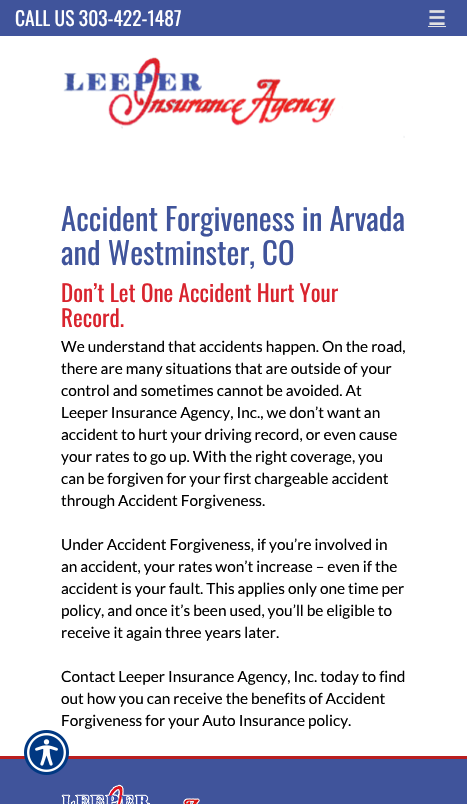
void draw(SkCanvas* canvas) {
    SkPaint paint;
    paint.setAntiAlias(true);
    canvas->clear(0xFFFFFFFF);
    paint.setColor(0xFF40549B);
    canvas->drawRect(SkRect::MakeXYWH(0, 0, 467, 36), paint);
    SkFont font1(fontMgr->matchFamilyStyle("Oswald", SkFontStyle::Normal()), 19.5f);
    font1.setSubpixel(true);
    paint.setColor(0xFFFFFFFF);
    canvas->drawString("CALL US 303-422-1487", 15, 26, font1, paint);
    SkFont font2(fontMgr->matchFamilyStyle("DejaVu Sans", SkFontStyle::Bold()), 19.5f);
    font2.setSubpixel(true);
    paint.setColor(0xFFE2E2E2);
    canvas->drawString("☰", 428, 25, font2, paint);
    canvas->drawRect(SkRect::MakeXYWH(428, 26, 18, 1), paint);
    canvas->drawImageRect(SkImages::DeferredFromEncodedData(SkData::MakeFromFileName("img1.png")), SkRect::MakeXYWH(63, 57, 342, 81), SkSamplingOptions());
    SkFont font3(fontMgr->matchFamilyStyle("Oswald", SkFontStyle::Normal()), 30.75f);
    font3.setSubpixel(true);
    paint.setColor(0xFF40549B);
    canvas->drawString("Accident Forgiveness in Arvada", 61, 231, font3, paint);
    canvas->drawString("and Westminster, CO", 61, 265, font3, paint);
    SkFont font4(fontMgr->matchFamilyStyle("Oswald", SkFontStyle::Normal()), 23.1f);
    font4.setSubpixel(true);
    paint.setColor(0xFFD9242E);
    canvas->drawString("Don’t Let One Accident Hurt Your", 61, 302, font4, paint);
    canvas->drawString("Record.", 61, 327, font4, paint);
    SkFont font5(fontMgr->matchFamilyStyle("Lato", SkFontStyle::Normal()), 15.4f);
    font5.setSubpixel(true);
    paint.setColor(0xFF000000);
    canvas->drawString("We understand that accidents happen. On the road,", 61, 352, font5, paint);
    canvas->drawString("there are many situations that are outside of your", 61, 374, font5, paint);
    canvas->drawString("control and sometimes cannot be avoided. At", 61, 396, font5, paint);
    canvas->drawString("Leeper Insurance Agency, Inc., we don’t want an", 61, 418, font5, paint);
    canvas->drawString("accident to hurt your driving record, or even cause", 61, 440, font5, paint);
    canvas->drawString("your rates to go up. With the right coverage, you", 61, 462, font5, paint);
    canvas->drawString("can be forgiven for your first chargeable accident", 61, 484, font5, paint);
    canvas->drawString("through Accident Forgiveness.", 61, 506, font5, paint);
    canvas->drawString("Under Accident Forgiveness, if you’re involved in", 61, 550, font5, paint);
    canvas->drawString("an accident, your rates won’t increase – even if the", 61, 572, font5, paint);
    canvas->drawString("accident is your fault. This applies only one time per", 61, 594, font5, paint);
    canvas->drawString("policy, and once it’s been used, you’ll be eligible to", 61, 616, font5, paint);
    canvas->drawString("receive it again three years later.", 61, 638, font5, paint);
    canvas->drawString("Contact Leeper Insurance Agency, Inc. today to find", 61, 682, font5, paint);
    canvas->drawString("out how you can receive the benefits of Accident", 61, 704, font5, paint);
    canvas->drawString("Forgiveness for your Auto Insurance policy.", 61, 726, font5, paint);
    paint.setColor(0xFF40549B);
    canvas->drawRect(SkRect::MakeXYWH(0, 759, 467, 45), paint);
    paint.setColor(0xFFBA1E1F);
    canvas->drawRect(SkRect::MakeXYWH(0, 756, 467, 3), paint);
    canvas->drawImageRect(SkImages::DeferredFromEncodedData(SkData::MakeFromFileName("img2.png")), SkRect::MakeXYWH(61, 784, 139, 20), SkSamplingOptions());
    canvas->drawImageRect(SkImages::DeferredFromEncodedData(SkData::MakeFromFileName("img3.png")), SkRect::MakeXYWH(24, 730, 45, 45), SkSamplingOptions());
}
